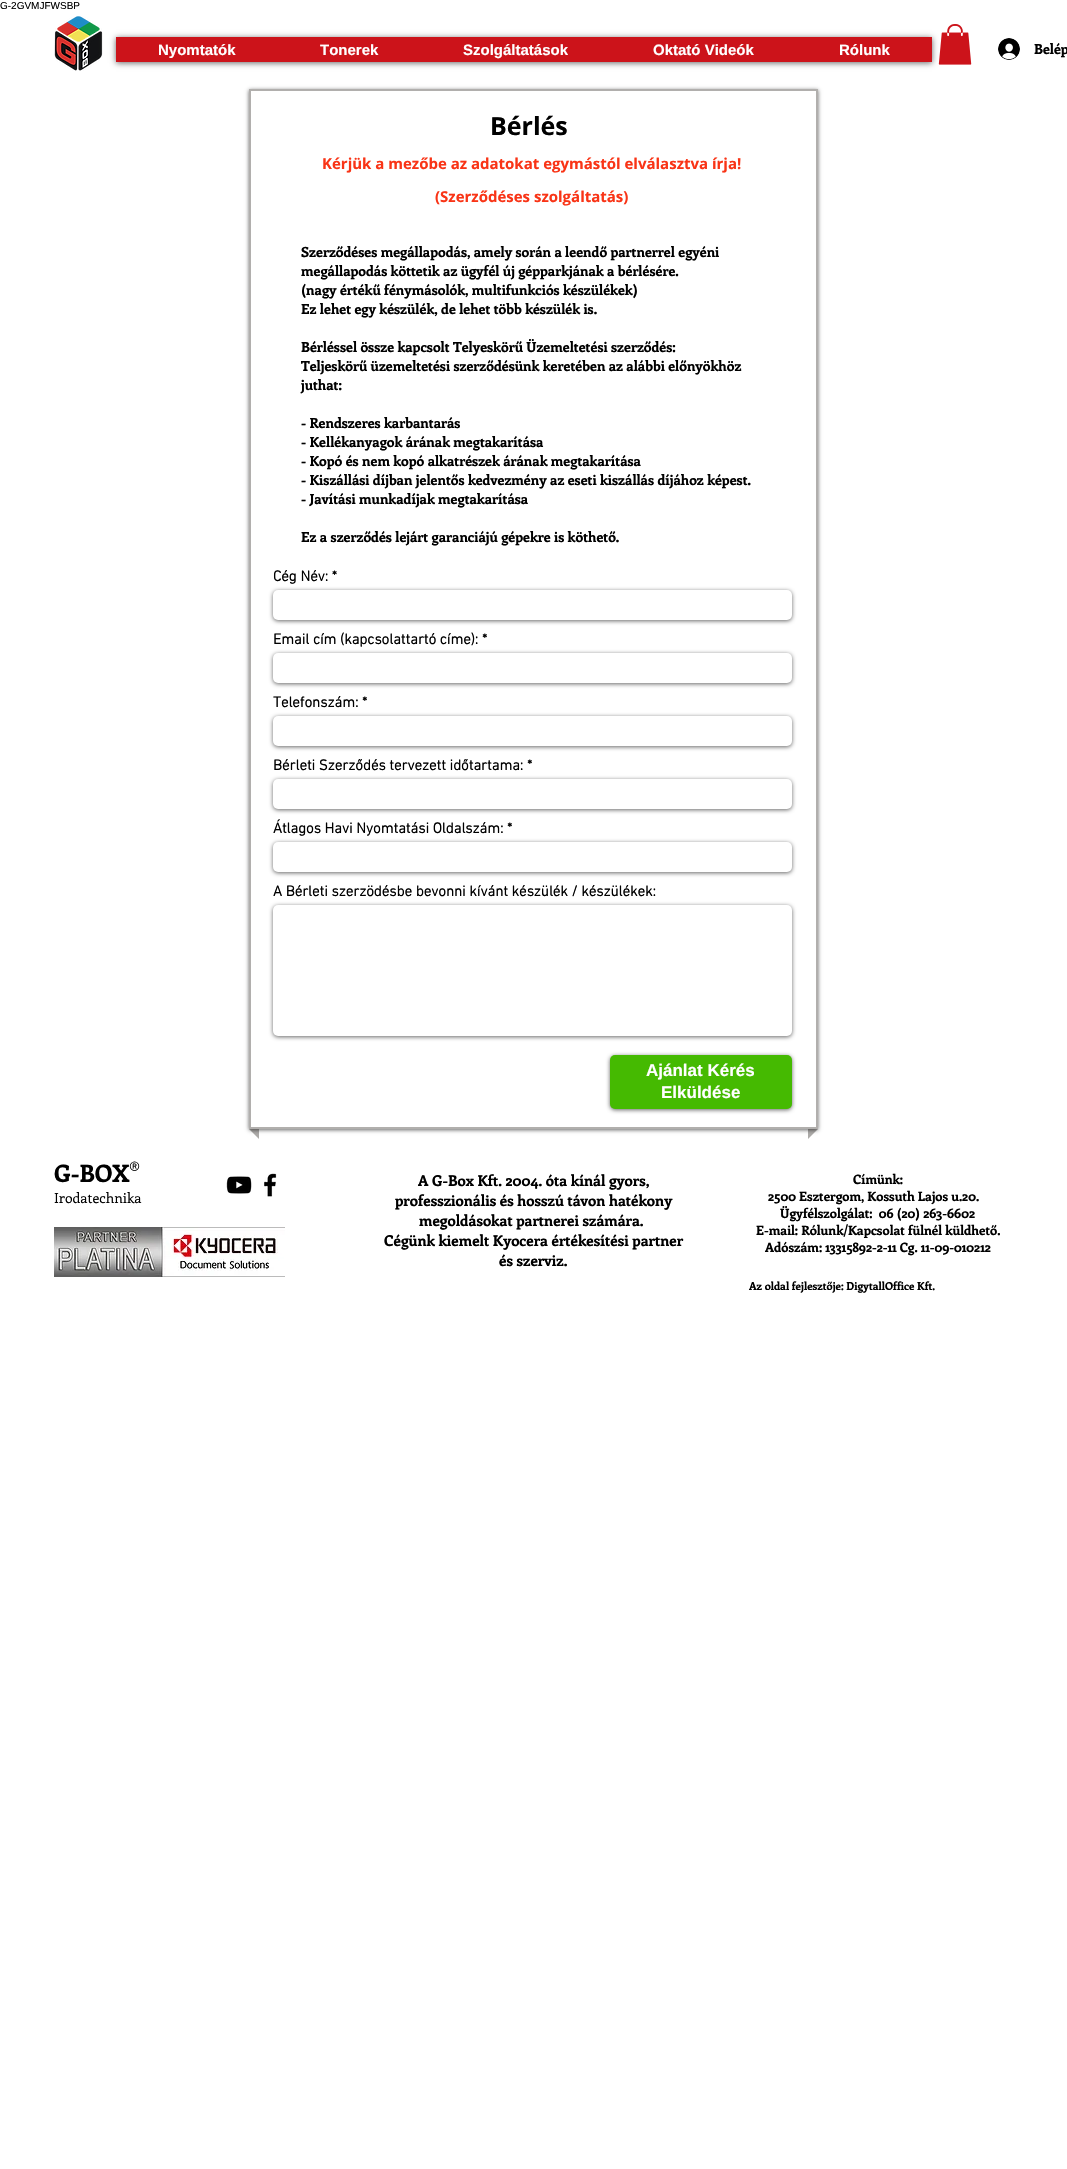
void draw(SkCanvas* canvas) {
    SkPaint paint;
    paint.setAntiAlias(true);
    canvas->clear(0xFFFFFFFF);
    SkFont font1(fontMgr->matchFamilyStyle("Liberation Sans", SkFontStyle::Normal()), 10);
    font1.setSubpixel(true);
    paint.setColor(0xFF000000);
    canvas->drawString("G-2GVMJFWSBP", 0, 9, font1, paint);
    canvas->drawImageRect(SkImages::DeferredFromEncodedData(SkData::MakeFromFileName("img1.png")), SkRect::MakeXYWH(54, 16, 49, 55), SkSamplingOptions());
    paint.setColor(0x99000000);
    paint.setMaskFilter(SkMaskFilter::MakeBlur(kNormal_SkBlurStyle, 3));
    canvas->drawRect(SkRect::MakeXYWH(116, 38, 816, 25), paint);
    paint.setMaskFilter(nullptr);
    paint.setColor(0xFFCC131A);
    canvas->drawRect(SkRect::MakeXYWH(116, 37, 816, 25), paint);
    SkFont font2(fontMgr->matchFamilyStyle("Liberation Sans", SkFontStyle::Bold()), 15);
    font2.setSubpixel(true);
    paint.setColor(0xFFFFFFFF);
    canvas->drawString("Nyomtatók", 158, 55, font2, paint);
    canvas->drawString("Tonerek", 320, 55, font2, paint);
    canvas->drawString("Szolgáltatások", 463, 55, font2, paint);
    canvas->drawString("Oktató Videók", 653, 55, font2, paint);
    canvas->drawString("Rólunk", 839, 55, font2, paint);
    canvas->drawImageRect(SkImages::DeferredFromEncodedData(SkData::MakeFromFileName("img2.png")), SkRect::MakeXYWH(938, 24, 34, 41), SkSamplingOptions());
    canvas->drawImageRect(SkImages::DeferredFromEncodedData(SkData::MakeFromFileName("img3.png")), SkRect::MakeXYWH(998, 38, 22, 22), SkSamplingOptions());
    SkFont font3(fontMgr->matchFamilyStyle("Enriqueta", SkFontStyle::Bold()), 14);
    font3.setSubpixel(true);
    paint.setColor(0xFF000000);
    canvas->drawString("Belép", 1034, 54, font3, paint);
    paint.setColor(0xFFACAAA8);
    canvas->drawPath(SkPathBuilder().moveTo(249, 1129).lineTo(259, 1129).lineTo(259, 1139).close().detach(), paint);
    canvas->drawPath(SkPathBuilder().moveTo(808, 1129).lineTo(818, 1129).lineTo(808, 1139).close().detach(), paint);
    canvas->save();
    canvas->clipPath(SkPathBuilder(SkPathFillType::kEvenOdd).moveTo(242, 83).lineTo(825, 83).lineTo(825, 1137).lineTo(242, 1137).close().moveTo(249, 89).lineTo(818, 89).lineTo(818, 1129).lineTo(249, 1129).close().detach(), true);
    paint.setColor(0x99000000);
    paint.setMaskFilter(SkMaskFilter::MakeBlur(kNormal_SkBlurStyle, 2));
    canvas->drawRect(SkRect::MakeXYWH(249, 90, 569, 1040), paint);
    paint.setMaskFilter(nullptr);
    canvas->restore();
    paint.setStyle(SkPaint::kStroke_Style);
    paint.setStrokeWidth(2);
    paint.setColor(0xFFB1AFAD);
    canvas->drawRect(SkRect::MakeXYWH(250, 90, 567, 1038), paint);
    SkFont font4(fontMgr->matchFamilyStyle("Open Sans", SkFontStyle::Bold()), 25);
    font4.setSubpixel(true);
    paint.setStyle(SkPaint::kFill_Style);
    paint.setColor(0xFF000000);
    canvas->drawString("Bérlés", 490, 135, font4, paint);
    SkFont font5(fontMgr->matchFamilyStyle("Open Sans", SkFontStyle::Bold()), 15);
    font5.setSubpixel(true);
    paint.setColor(0xFFF93416);
    canvas->drawString("Kérjük a mezőbe az adatokat egymástól elválasztva írja!", 322, 169, font5, paint);
    canvas->drawString("(Szerződéses szolgáltatás)", 435, 202, font5, paint);
    paint.setColor(0xFF000000);
    canvas->drawString("Szerződéses megállapodás, amely során a leendő partnerrel egyéni", 301, 257, font3, paint);
    canvas->drawString("megállapodás köttetik az ügyfél új gépparkjának a bérlésére.", 301, 276, font3, paint);
    canvas->drawString("(nagy értékű fénymásolók, multifunkciós készülékek)", 301, 295, font3, paint);
    canvas->drawString("Ez lehet egy készülék, de lehet több készülék is.", 301, 314, font3, paint);
    canvas->drawString("Bérléssel össze kapcsolt Telyeskörű Üzemeltetési szerződés:", 301, 352, font3, paint);
    canvas->drawString("Teljeskörű üzemeltetési szerződésünk keretében az alábbi előnyökhöz", 301, 371, font3, paint);
    canvas->drawString("juthat:", 301, 390, font3, paint);
    canvas->drawString("- Rendszeres karbantarás", 301, 428, font3, paint);
    canvas->drawString("- Kellékanyagok árának megtakarítása", 301, 447, font3, paint);
    canvas->drawString("- Kopó és nem kopó alkatrészek árának megtakarítása", 301, 466, font3, paint);
    canvas->drawString("- Kiszállási díjban jelentős kedvezmény az eseti kiszállás díjához képest.", 301, 485, font3, paint);
    canvas->drawString("- Javítási munkadíjak megtakarítása", 301, 504, font3, paint);
    canvas->drawString("Ez a szerződés lejárt garanciájú gépekre is köthető.", 301, 542, font3, paint);
    SkFont font6(fontMgr->matchFamilyStyle("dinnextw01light", SkFontStyle::Bold()), 15);
    font6.setSubpixel(true);
    canvas->drawString("Cég Név: *", 273, 581, font6, paint);
    paint.setColor(0x99000000);
    paint.setMaskFilter(SkMaskFilter::MakeBlur(kNormal_SkBlurStyle, 2));
    canvas->drawRoundRect(SkRect::MakeXYWH(273, 591, 519, 30), 5, 5, paint);
    paint.setMaskFilter(nullptr);
    paint.setColor(0xFFFFFFFF);
    canvas->drawRoundRect(SkRect::MakeXYWH(273, 590, 519, 30), 5, 5, paint);
    paint.setColor(0xFF000000);
    canvas->drawString("Email cím (kapcsolattartó címe): *", 273, 644, font6, paint);
    paint.setColor(0x99000000);
    paint.setMaskFilter(SkMaskFilter::MakeBlur(kNormal_SkBlurStyle, 2));
    canvas->drawRoundRect(SkRect::MakeXYWH(273, 654, 519, 30), 5, 5, paint);
    paint.setMaskFilter(nullptr);
    paint.setColor(0xFFFFFFFF);
    canvas->drawRoundRect(SkRect::MakeXYWH(273, 653, 519, 30), 5, 5, paint);
    paint.setColor(0xFF000000);
    canvas->drawString("Telefonszám: *", 273, 707, font6, paint);
    paint.setColor(0x99000000);
    paint.setMaskFilter(SkMaskFilter::MakeBlur(kNormal_SkBlurStyle, 2));
    canvas->drawRoundRect(SkRect::MakeXYWH(273, 717, 519, 30), 5, 5, paint);
    paint.setMaskFilter(nullptr);
    paint.setColor(0xFFFFFFFF);
    canvas->drawRoundRect(SkRect::MakeXYWH(273, 716, 519, 30), 5, 5, paint);
    paint.setColor(0xFF000000);
    canvas->drawString("Bérleti Szerződés tervezett időtartama: *", 273, 770, font6, paint);
    paint.setColor(0x99000000);
    paint.setMaskFilter(SkMaskFilter::MakeBlur(kNormal_SkBlurStyle, 2));
    canvas->drawRoundRect(SkRect::MakeXYWH(273, 780, 519, 30), 5, 5, paint);
    paint.setMaskFilter(nullptr);
    paint.setColor(0xFFFFFFFF);
    canvas->drawRoundRect(SkRect::MakeXYWH(273, 779, 519, 30), 5, 5, paint);
    paint.setColor(0xFF000000);
    canvas->drawString("Átlagos Havi Nyomtatási Oldalszám: *", 273, 833, font6, paint);
    paint.setColor(0x99000000);
    paint.setMaskFilter(SkMaskFilter::MakeBlur(kNormal_SkBlurStyle, 2));
    canvas->drawRoundRect(SkRect::MakeXYWH(273, 843, 519, 30), 5, 5, paint);
    paint.setMaskFilter(nullptr);
    paint.setColor(0xFFFFFFFF);
    canvas->drawRoundRect(SkRect::MakeXYWH(273, 842, 519, 30), 5, 5, paint);
    paint.setColor(0xFF000000);
    canvas->drawString("A Bérleti szerzödésbe bevonni kívánt készülék / készülékek:", 273, 896, font6, paint);
    paint.setColor(0x99000000);
    paint.setMaskFilter(SkMaskFilter::MakeBlur(kNormal_SkBlurStyle, 2));
    canvas->drawRoundRect(SkRect::MakeXYWH(273, 906, 519, 131), 5, 5, paint);
    paint.setMaskFilter(nullptr);
    paint.setColor(0xFFFFFFFF);
    canvas->drawRoundRect(SkRect::MakeXYWH(273, 905, 519, 131), 5, 5, paint);
    paint.setColor(0x99000000);
    paint.setMaskFilter(SkMaskFilter::MakeBlur(kNormal_SkBlurStyle, 2));
    canvas->drawRoundRect(SkRect::MakeXYWH(610, 1056, 182, 54), 5, 5, paint);
    paint.setMaskFilter(nullptr);
    paint.setColor(0xFF45BA01);
    canvas->drawRoundRect(SkRect::MakeXYWH(610, 1055, 182, 54), 5, 5, paint);
    SkFont font7(fontMgr->matchFamilyStyle("Liberation Sans", SkFontStyle::Bold()), 17);
    font7.setSubpixel(true);
    paint.setColor(0xFFFFFFFF);
    canvas->drawString("Ajánlat Kérés", 646, 1076, font7, paint);
    canvas->drawString("Elküldése", 661, 1098, font7, paint);
    SkFont font8(fontMgr->matchFamilyStyle("Enriqueta", SkFontStyle::Bold()), 24);
    font8.setSubpixel(true);
    paint.setColor(0xFF000000);
    canvas->drawString("G-BOX", 54, 1182, font8, paint);
    SkFont font9(fontMgr->matchFamilyStyle("dinnextw01light", SkFontStyle(300, SkFontStyle::kNormal_Width, SkFontStyle::kUpright_Slant)), 24);
    font9.setSubpixel(true);
    canvas->drawString("®", 129, 1178, font9, paint);
    canvas->drawImageRect(SkImages::DeferredFromEncodedData(SkData::MakeFromFileName("img4.png")), SkRect::MakeXYWH(226, 1176, 26, 18), SkSamplingOptions());
    canvas->drawImageRect(SkImages::DeferredFromEncodedData(SkData::MakeFromFileName("img5.png")), SkRect::MakeXYWH(264, 1173, 13, 24), SkSamplingOptions());
    SkFont font10(fontMgr->matchFamilyStyle("Enriqueta", SkFontStyle::Bold()), 15);
    font10.setSubpixel(true);
    canvas->drawString("A G-Box Kft. 2004. óta kínál gyors,", 418, 1186, font10, paint);
    canvas->drawString("professzionális és hosszú távon hatékony", 395, 1206, font10, paint);
    canvas->drawString("megoldásokat partnerei számára.", 419, 1226, font10, paint);
    canvas->drawString("Cégünk kiemelt Kyocera értékesítési partner", 384, 1246, font10, paint);
    canvas->drawString("és szerviz.", 499, 1266, font10, paint);
    SkFont font11(fontMgr->matchFamilyStyle("Enriqueta", SkFontStyle::Bold()), 13);
    font11.setSubpixel(true);
    canvas->drawString("Címünk:", 853, 1184, font11, paint);
    canvas->drawString("2500 Esztergom, Kossuth Lajos u.20.", 768, 1201, font11, paint);
    canvas->drawString("Ügyfélszolgálat:  06 (20) 263-6602", 780, 1218, font11, paint);
    canvas->drawString("E-mail: Rólunk/Kapcsolat fülnél küldhető.", 756, 1235, font11, paint);
    canvas->drawString("Adószám: 13315892-2-11 Cg. 11-09-010212", 765, 1252, font11, paint);
    SkFont font12(fontMgr->matchFamilyStyle("Enriqueta", SkFontStyle::Normal()), 14);
    font12.setSubpixel(true);
    canvas->drawString("Irodatechnika", 54, 1203, font12, paint);
    canvas->drawImageRect(SkImages::DeferredFromEncodedData(SkData::MakeFromFileName("img6.png")), SkRect::MakeXYWH(54, 1227, 231, 50), SkSamplingOptions());
    SkFont font13(fontMgr->matchFamilyStyle("Enriqueta", SkFontStyle::Bold()), 11);
    font13.setSubpixel(true);
    canvas->drawString("Az oldal fejlesztője: DigytallOffice Kft.", 749, 1290, font13, paint);
}
